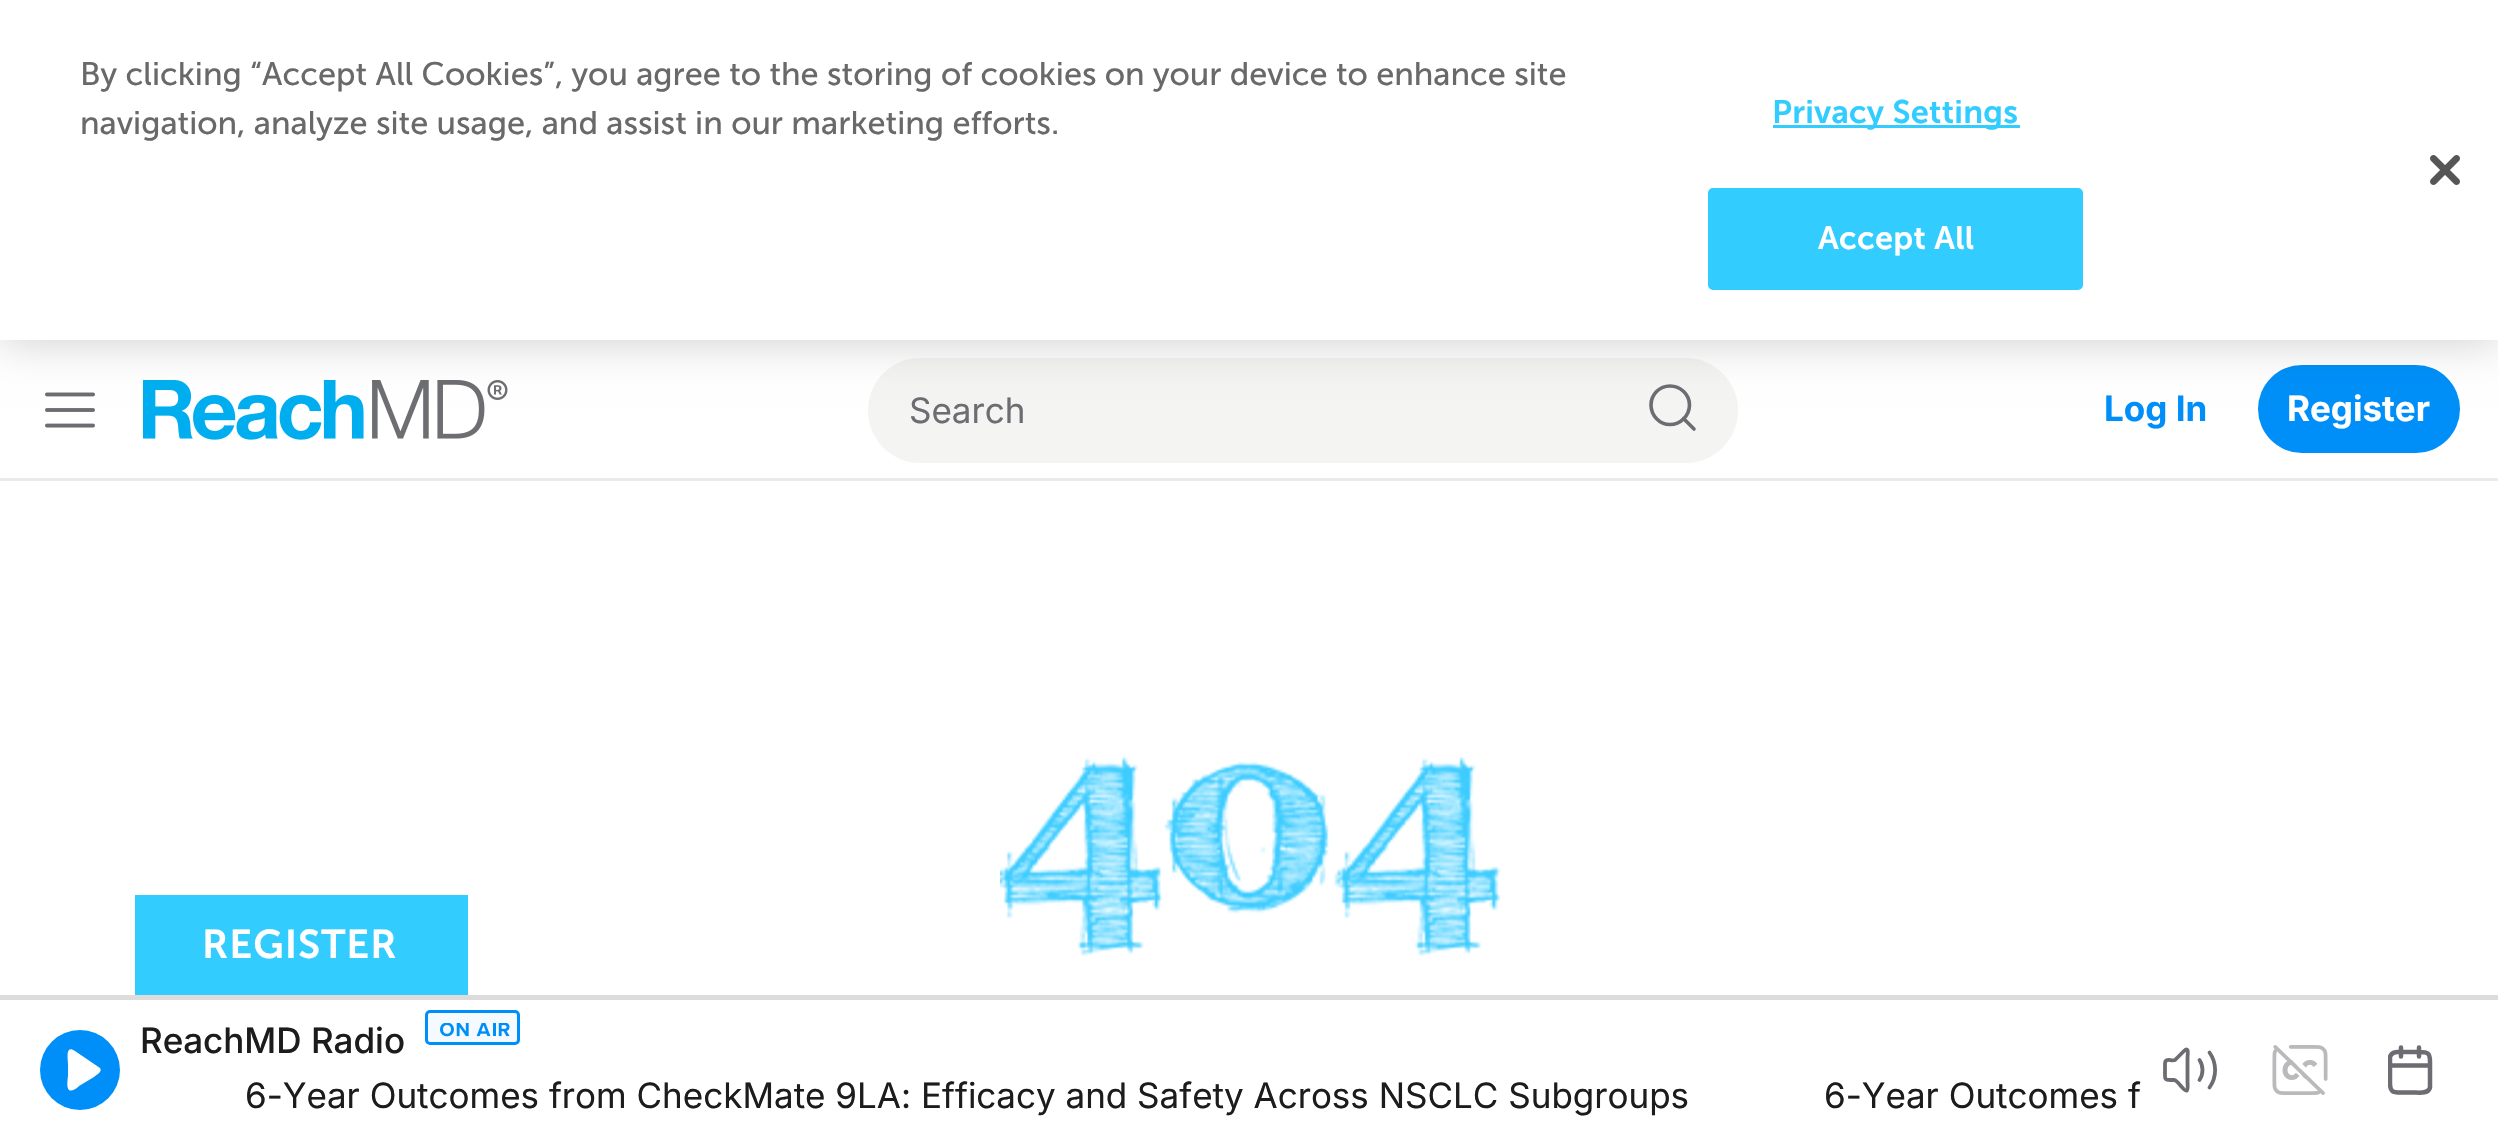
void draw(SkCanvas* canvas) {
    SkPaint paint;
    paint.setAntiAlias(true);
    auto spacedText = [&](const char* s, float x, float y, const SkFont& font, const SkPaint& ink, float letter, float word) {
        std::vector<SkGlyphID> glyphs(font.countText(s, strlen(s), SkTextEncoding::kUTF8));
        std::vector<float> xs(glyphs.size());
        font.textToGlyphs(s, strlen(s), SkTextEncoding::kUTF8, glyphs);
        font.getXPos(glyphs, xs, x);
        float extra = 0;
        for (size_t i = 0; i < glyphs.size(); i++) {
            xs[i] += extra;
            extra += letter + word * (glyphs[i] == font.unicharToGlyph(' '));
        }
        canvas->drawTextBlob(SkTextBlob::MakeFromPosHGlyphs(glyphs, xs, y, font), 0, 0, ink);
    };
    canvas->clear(0xFFFFFFFF);
    canvas->drawImageRect(SkImages::DeferredFromEncodedData(SkData::MakeFromFileName("img2.png")), SkRect::MakeXYWH(45, 392, 50, 36), SkSamplingOptions());
    canvas->drawImageRect(SkImages::DeferredFromEncodedData(SkData::MakeFromFileName("img3.png")), SkRect::MakeXYWH(143, 380, 365, 60), SkSamplingOptions());
    paint.setColor(0xFFF4F4F3);
    canvas->drawPath(SkPathBuilder().moveTo(920.5f, 358).lineTo(1618, 358).lineTo(1618, 463).lineTo(920.5f, 463).cubicTo(891.5f, 463, 868, 439.5f, 868, 410.5f).cubicTo(868, 381.5f, 891.5f, 358, 920.5f, 358).close().detach(), paint);
    canvas->drawPath(SkPathBuilder().moveTo(1618, 358).lineTo(1685.5f, 358).cubicTo(1714.5f, 358, 1738, 381.5f, 1738, 410.5f).cubicTo(1738, 439.5f, 1714.5f, 463, 1685.5f, 463).lineTo(1618, 463).close().detach(), paint);
    paint.setStyle(SkPaint::kStroke_Style);
    paint.setStrokeWidth(3.6f);
    paint.setStrokeCap(SkPaint::kRound_Cap);
    paint.setStrokeJoin(SkPaint::kRound_Join);
    paint.setColor(0xFF6C6C72);
    canvas->drawPath(SkPathBuilder().moveTo(1670, 424.5f).cubicTo(1680.5f, 424.5f, 1689.5f, 415.5f, 1689.5f, 405).cubicTo(1689.5f, 394.5f, 1680.5f, 386, 1670, 386).cubicTo(1659.5f, 386, 1651, 394.5f, 1651, 405).cubicTo(1651, 415.5f, 1659.5f, 424.5f, 1670, 424.5f).close().moveTo(1694, 429).lineTo(1683.5f, 418.5f).detach(), paint);
    paint.setStyle(SkPaint::kFill_Style);
    paint.setColor(0xFF008FF8);
    canvas->drawRoundRect(SkRect::MakeXYWH(2258, 365, 202, 88), 44, 44, paint);
    paint.setColor(0x33000000);
    paint.setMaskFilter(SkMaskFilter::MakeBlur(kNormal_SkBlurStyle, 22.5f));
    canvas->drawRect(SkRect::MakeXYWH(0, 0, 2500, 340), paint);
    paint.setMaskFilter(nullptr);
    paint.setColor(0xFFFFFFFF);
    canvas->drawRect(SkRect::MakeXYWH(0, 0, 2498, 340), paint);
    SkFont font1(fontMgr->matchFamilyStyle("Museo Sans", SkFontStyle::Normal()), 32.5f);
    font1.setSubpixel(true);
    paint.setColor(0xFF696969);
    canvas->drawString("By clicking “Accept All Cookies”, you agree to the storing of cookies on your device to enhance site", 80, 85, font1, paint);
    canvas->drawString("navigation, analyze site usage, and assist in our marketing efforts.", 80, 134, font1, paint);
    paint.setColor(0xFF33CCFF);
    canvas->drawRect(SkRect::MakeXYWH(1773, 125, 247, 3), paint);
    SkFont font2(fontMgr->matchFamilyStyle("Museo Sans", SkFontStyle(600, SkFontStyle::kNormal_Width, SkFontStyle::kUpright_Slant)), 32.5f);
    font2.setSubpixel(true);
    spacedText("Privacy Settings", 1772, 123, font2, paint, 0.3f, 0);
    canvas->drawRoundRect(SkRect::MakeXYWH(1709.5f, 189.5f, 372, 99), 3.5f, 3.5f, paint);
    paint.setStyle(SkPaint::kStroke_Style);
    paint.setStrokeWidth(3);
    paint.setStrokeCap(SkPaint::kButt_Cap);
    paint.setStrokeJoin(SkPaint::kMiter_Join);
    canvas->drawRoundRect(SkRect::MakeXYWH(1709.5f, 189.5f, 372, 99), 3.5f, 3.5f, paint);
    paint.setStyle(SkPaint::kFill_Style);
    paint.setColor(0xFFFFFFFF);
    spacedText("Accept All", 1818, 249, font2, paint, 0.3f, 0);
    canvas->drawImageRect(SkImages::DeferredFromEncodedData(SkData::MakeFromFileName("img1.png")), SkRect::MakeXYWH(2430, 155, 30, 30), SkSamplingOptions());
    paint.setColor(0xFFEAEAEA);
    canvas->drawRect(SkRect::MakeXYWH(0, 478, 2498, 3), paint);
    SkFont font3(fontMgr->matchFamilyStyle("Inter", SkFontStyle::Normal()), 35);
    font3.setSubpixel(true);
    paint.setColor(0xFF6C6C72);
    canvas->drawString("Search", 909, 423, font3, paint);
    SkFont font4(fontMgr->matchFamilyStyle("Inter", SkFontStyle::Bold()), 35);
    font4.setSubpixel(true);
    paint.setColor(0xFF008FF8);
    canvas->drawString("Log In", 2104, 421, font4, paint);
    paint.setColor(0xFFFFFFFF);
    canvas->drawString("Register", 2287, 421, font4, paint);
    paint.setColor(0xFF33CCFF);
    canvas->drawRect(SkRect::MakeXYWH(135, 895, 333, 100), paint);
    SkFont font5(fontMgr->matchFamilyStyle("Museo Sans", SkFontStyle(600, SkFontStyle::kNormal_Width, SkFontStyle::kUpright_Slant)), 40);
    font5.setSubpixel(true);
    paint.setColor(0xFFFFFFFF);
    spacedText("REGISTER", 202, 958, font5, paint, 1, 0);
    canvas->drawImageRect(SkImages::DeferredFromEncodedData(SkData::MakeFromFileName("img4.png")), SkRect::MakeXYWH(1000, 757, 500, 199), SkSamplingOptions());
    paint.setColor(0xFFDCDCDC);
    canvas->drawRect(SkRect::MakeXYWH(0, 995, 2498, 5), paint);
    paint.setColor(0xFF008FF8);
    canvas->drawCircle(80, 1070, 40, paint);
    paint.setColor(0xFFFFFFFF);
    canvas->drawPath(SkPathBuilder(SkPathFillType::kEvenOdd).moveTo(75, 1051).lineTo(100, 1068).cubicTo(103, 1072, 96, 1075, 94, 1077).lineTo(79, 1086).cubicTo(77, 1088, 72, 1092, 69, 1090).cubicTo(66, 1088, 68, 1077, 68, 1075).lineTo(68, 1064).cubicTo(68, 1059, 65, 1044, 75, 1051).close().detach(), paint);
    SkFont font6(fontMgr->matchFamilyStyle("Inter", SkFontStyle(500, SkFontStyle::kNormal_Width, SkFontStyle::kUpright_Slant)), 35);
    font6.setSubpixel(true);
    paint.setColor(0xFF1C1C1C);
    canvas->drawString("ReachMD Radio", 140, 1053, font6, paint);
    paint.setColor(0xFFF4FAFF);
    canvas->drawRoundRect(SkRect::MakeXYWH(426.5f, 1011.5f, 92, 32), 3.5f, 3.5f, paint);
    paint.setStyle(SkPaint::kStroke_Style);
    paint.setColor(0xFF008FF8);
    canvas->drawRoundRect(SkRect::MakeXYWH(426.5f, 1011.5f, 92, 32), 3.5f, 3.5f, paint);
    canvas->drawImageRect(SkImages::DeferredFromEncodedData(SkData::MakeFromFileName("img5.png")), SkRect::MakeXYWH(440, 1023, 70, 14), SkSamplingOptions());
    paint.setStyle(SkPaint::kFill_Style);
    paint.setColor(0xFF1C1C1C);
    canvas->drawString("6-Year Outcomes from CheckMate 9LA: Efficacy and Safety Across NSCLC Subgroups", 245, 1108, font3, paint);
    canvas->drawString("6-Year Outcomes f", 1824, 1108, font3, paint);
    paint.setStyle(SkPaint::kStroke_Style);
    paint.setStrokeWidth(3.8f);
    paint.setStrokeCap(SkPaint::kRound_Cap);
    paint.setStrokeJoin(SkPaint::kRound_Join);
    paint.setColor(0xFF6C6C72);
    canvas->drawPath(SkPathBuilder().moveTo(2209.5f, 1052.5f).cubicTo(2217, 1063, 2217, 1077, 2209.5f, 1087.5f).moveTo(2199.5f, 1060).cubicTo(2203.5f, 1066, 2203.5f, 1074, 2199.5f, 1080).moveTo(2184, 1051).lineTo(2175, 1060).cubicTo(2171, 1061.5f, 2165, 1057, 2165, 1064).lineTo(2165, 1072).cubicTo(2165, 1078.5f, 2164, 1080, 2170.5f, 1080).lineTo(2174.5f, 1080).cubicTo(2178, 1081, 2184.5f, 1092, 2187, 1090.5f).cubicTo(2188, 1089.5f, 2187.5f, 1082, 2187.5f, 1082).lineTo(2187.5f, 1058).cubicTo(2187.5f, 1055.5f, 2189.5f, 1045.5f, 2184, 1051).close().detach(), paint);
    canvas->drawImageRect(SkImages::DeferredFromEncodedData(SkData::MakeFromFileName("img6.png")), SkRect::MakeXYWH(2272, 1045, 56, 50), SkSamplingOptions());
    canvas->save();
    canvas->clipRect(SkRect::MakeXYWH(2388, 1045, 45, 50));
    paint.setStrokeWidth(4.5f);
    canvas->drawPath(SkPathBuilder().moveTo(2430, 1065.5f).lineTo(2390, 1065.5f).moveTo(2419, 1047.5f).lineTo(2419, 1056.5f).moveTo(2401, 1047.5f).lineTo(2401, 1056.5f).moveTo(2400.5f, 1092.5f).lineTo(2413, 1092.5f).cubicTo(2418, 1092.5f, 2428.5f, 1094.5f, 2430, 1087.5f).lineTo(2430, 1061.5f).cubicTo(2430, 1053, 2427.5f, 1052, 2419.5f, 1052).lineTo(2407, 1052).cubicTo(2402, 1052, 2391.5f, 1050, 2390, 1057).lineTo(2390, 1083).cubicTo(2390, 1091.5f, 2392.5f, 1092.5f, 2400.5f, 1092.5f).close().detach(), paint);
    canvas->restore();
}
